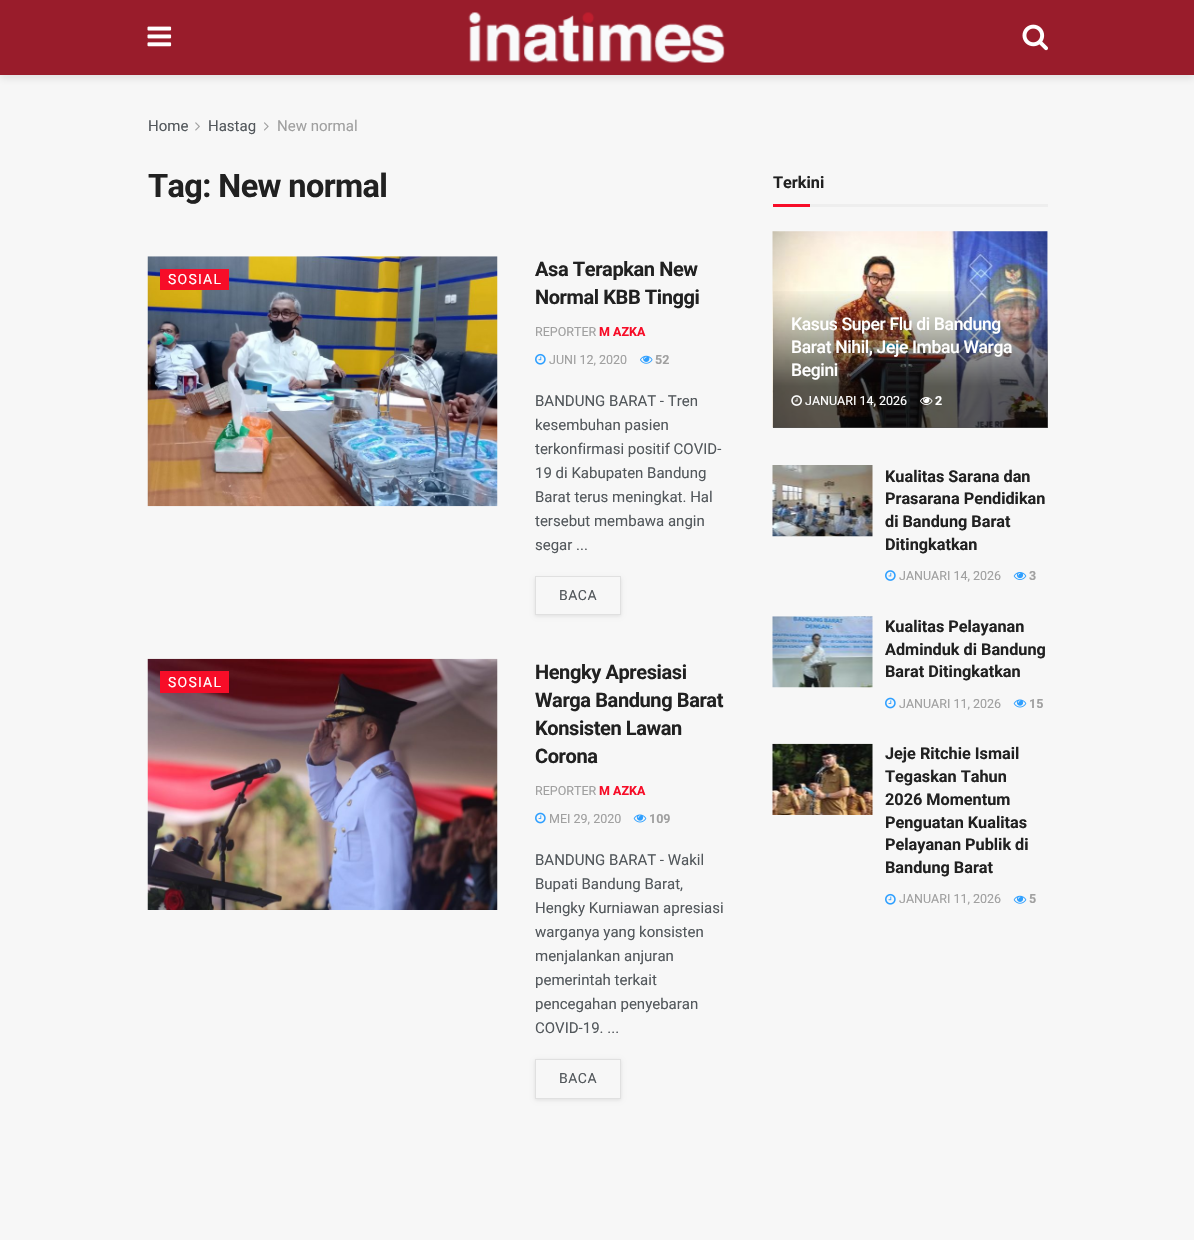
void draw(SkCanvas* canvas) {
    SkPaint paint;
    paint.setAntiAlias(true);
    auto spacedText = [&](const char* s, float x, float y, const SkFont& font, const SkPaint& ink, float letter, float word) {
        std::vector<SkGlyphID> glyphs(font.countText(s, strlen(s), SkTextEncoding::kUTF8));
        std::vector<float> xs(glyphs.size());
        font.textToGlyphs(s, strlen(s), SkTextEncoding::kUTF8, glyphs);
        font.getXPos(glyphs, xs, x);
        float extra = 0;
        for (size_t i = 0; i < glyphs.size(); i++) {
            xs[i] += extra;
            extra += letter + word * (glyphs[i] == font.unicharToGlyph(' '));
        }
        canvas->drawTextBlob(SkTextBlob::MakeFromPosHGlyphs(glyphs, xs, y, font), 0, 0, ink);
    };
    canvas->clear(0xFFF7F7F7);
    paint.setColor(0x1A000000);
    paint.setMaskFilter(SkMaskFilter::MakeBlur(kNormal_SkBlurStyle, 4));
    canvas->drawRect(SkRect::MakeXYWH(0, 3, 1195, 75), paint);
    paint.setMaskFilter(nullptr);
    paint.setColor(0xFF991C2B);
    canvas->drawRect(SkRect::MakeXYWH(0, 0, 1194, 75), paint);
    canvas->drawImageRect(SkImages::DeferredFromEncodedData(SkData::MakeFromFileName("img1.png")), SkRect::MakeXYWH(147, 26, 25, 21), SkSamplingOptions());
    canvas->drawImageRect(SkImages::DeferredFromEncodedData(SkData::MakeFromFileName("img2.png")), SkRect::MakeXYWH(468, 12, 257, 51), SkSamplingOptions());
    canvas->drawImageRect(SkImages::DeferredFromEncodedData(SkData::MakeFromFileName("img3.png")), SkRect::MakeXYWH(1022, 24, 26, 27), SkSamplingOptions());
    SkFont font1(fontMgr->matchFamilyStyle("Roboto", SkFontStyle::Normal()), 15);
    font1.setSubpixel(true);
    paint.setColor(0xFF53585C);
    canvas->drawString("Home", 148, 131, font1, paint);
    canvas->drawImageRect(SkImages::DeferredFromEncodedData(SkData::MakeFromFileName("img4.png")), SkRect::MakeXYWH(195, 122, 5, 9), SkSamplingOptions());
    canvas->drawString("Hastag", 208, 131, font1, paint);
    canvas->drawImageRect(SkImages::DeferredFromEncodedData(SkData::MakeFromFileName("img5.png")), SkRect::MakeXYWH(264, 122, 5, 9), SkSamplingOptions());
    paint.setColor(0xFFA0A0A0);
    canvas->drawString("New normal", 277, 131, font1, paint);
    SkFont font2(fontMgr->matchFamilyStyle("Roboto", SkFontStyle::Bold()), 32.5f);
    font2.setSubpixel(true);
    paint.setColor(0xFF212121);
    spacedText("Tag: New normal", 148, 197, font2, paint, -0.6f, 0);
    canvas->drawImageRect(SkImages::DeferredFromEncodedData(SkData::MakeFromFileName("img6.png")), SkRect::MakeXYWH(147, 256, 351, 251), SkSamplingOptions());
    paint.setColor(0xFFF70D28);
    canvas->drawRect(SkRect::MakeXYWH(160, 269, 69, 21), paint);
    SkFont font3(fontMgr->matchFamilyStyle("Roboto", SkFontStyle::Normal()), 14);
    font3.setSubpixel(true);
    paint.setColor(0xFFFFFFFF);
    spacedText("SOSIAL", 168, 284, font3, paint, 1.25f, 0);
    SkFont font4(fontMgr->matchFamilyStyle("Roboto", SkFontStyle::Bold()), 20);
    font4.setSubpixel(true);
    paint.setColor(0xFF212121);
    spacedText("Asa Terapkan New", 535, 276, font4, paint, -0.4f, 0);
    spacedText("Normal KBB Tinggi", 535, 304, font4, paint, -0.4f, 0);
    SkFont font5(fontMgr->matchFamilyStyle("Roboto", SkFontStyle::Normal()), 12.5f);
    font5.setSubpixel(true);
    paint.setColor(0xFFA0A0A0);
    canvas->drawString("REPORTER", 535, 336, font5, paint);
    SkFont font6(fontMgr->matchFamilyStyle("Roboto", SkFontStyle::Bold()), 12.5f);
    font6.setSubpixel(true);
    paint.setColor(0xFFF70D28);
    canvas->drawString("M AZKA", 599, 336, font6, paint);
    canvas->drawImageRect(SkImages::DeferredFromEncodedData(SkData::MakeFromFileName("img7.png")), SkRect::MakeXYWH(535, 353, 11, 12), SkSamplingOptions());
    paint.setColor(0xFFA0A0A0);
    canvas->drawString("JUNI 12, 2020", 549, 364, font5, paint);
    canvas->drawImageRect(SkImages::DeferredFromEncodedData(SkData::MakeFromFileName("img8.png")), SkRect::MakeXYWH(640, 355, 13, 9), SkSamplingOptions());
    canvas->drawString("52", 655, 364, font6, paint);
    paint.setColor(0xFF53585C);
    canvas->drawString("BANDUNG BARAT - Tren", 535, 406, font1, paint);
    canvas->drawString("kesembuhan pasien", 535, 430, font1, paint);
    canvas->drawString("terkonfirmasi positif COVID-", 535, 454, font1, paint);
    canvas->drawString("19 di Kabupaten Bandung", 535, 478, font1, paint);
    canvas->drawString("Barat terus meningkat. Hal", 535, 502, font1, paint);
    canvas->drawString("tersebut membawa angin", 535, 526, font1, paint);
    canvas->drawString("segar ...", 535, 550, font1, paint);
    canvas->save();
    canvas->clipPath(SkPathBuilder(SkPathFillType::kEvenOdd).moveTo(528, 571).lineTo(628, 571).lineTo(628, 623).lineTo(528, 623).close().moveTo(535, 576).lineTo(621, 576).lineTo(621, 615).lineTo(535, 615).close().detach(), true);
    paint.setColor(0x1A000000);
    paint.setMaskFilter(SkMaskFilter::MakeBlur(kNormal_SkBlurStyle, 2));
    canvas->drawRect(SkRect::MakeXYWH(535, 578, 86, 38), paint);
    paint.setMaskFilter(nullptr);
    canvas->restore();
    paint.setStyle(SkPaint::kStroke_Style);
    paint.setStrokeWidth(1);
    paint.setColor(0xFFE0E0E0);
    canvas->drawRect(SkRect::MakeXYWH(535.5f, 576.5f, 85, 38), paint);
    paint.setStyle(SkPaint::kFill_Style);
    paint.setColor(0xFF53585C);
    spacedText("BACA", 559, 600, font3, paint, 0.5f, 0);
    canvas->drawImageRect(SkImages::DeferredFromEncodedData(SkData::MakeFromFileName("img9.png")), SkRect::MakeXYWH(147, 658, 351, 252), SkSamplingOptions());
    paint.setColor(0xFFF70D28);
    canvas->drawRect(SkRect::MakeXYWH(160, 671, 69, 22), paint);
    paint.setColor(0xFFFFFFFF);
    spacedText("SOSIAL", 168, 687, font3, paint, 1.25f, 0);
    paint.setColor(0xFF212121);
    spacedText("Hengky Apresiasi", 535, 679, font4, paint, -0.4f, 0);
    spacedText("Warga Bandung Barat", 535, 707, font4, paint, -0.4f, 0);
    spacedText("Konsisten Lawan", 535, 735, font4, paint, -0.4f, 0);
    spacedText("Corona", 535, 763, font4, paint, -0.4f, 0);
    paint.setColor(0xFFA0A0A0);
    canvas->drawString("REPORTER", 535, 795, font5, paint);
    paint.setColor(0xFFF70D28);
    canvas->drawString("M AZKA", 599, 795, font6, paint);
    canvas->drawImageRect(SkImages::DeferredFromEncodedData(SkData::MakeFromFileName("img10.png")), SkRect::MakeXYWH(535, 812, 11, 12), SkSamplingOptions());
    paint.setColor(0xFFA0A0A0);
    canvas->drawString("MEI 29, 2020", 549, 823, font5, paint);
    canvas->drawImageRect(SkImages::DeferredFromEncodedData(SkData::MakeFromFileName("img11.png")), SkRect::MakeXYWH(633, 814, 14, 9), SkSamplingOptions());
    canvas->drawString("109", 649, 823, font6, paint);
    paint.setColor(0xFF53585C);
    canvas->drawString("BANDUNG BARAT - Wakil", 535, 865, font1, paint);
    canvas->drawString("Bupati Bandung Barat,", 535, 889, font1, paint);
    canvas->drawString("Hengky Kurniawan apresiasi", 535, 913, font1, paint);
    canvas->drawString("warganya yang konsisten", 535, 937, font1, paint);
    canvas->drawString("menjalankan anjuran", 535, 961, font1, paint);
    canvas->drawString("pemerintah terkait", 535, 985, font1, paint);
    canvas->drawString("pencegahan penyebaran", 535, 1009, font1, paint);
    canvas->drawString("COVID-19. ...", 535, 1033, font1, paint);
    canvas->save();
    canvas->clipPath(SkPathBuilder(SkPathFillType::kEvenOdd).moveTo(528, 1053).lineTo(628, 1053).lineTo(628, 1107).lineTo(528, 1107).close().moveTo(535, 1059).lineTo(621, 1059).lineTo(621, 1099).lineTo(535, 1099).close().detach(), true);
    paint.setColor(0x1A000000);
    paint.setMaskFilter(SkMaskFilter::MakeBlur(kNormal_SkBlurStyle, 2));
    canvas->drawRect(SkRect::MakeXYWH(535, 1060, 86, 40), paint);
    paint.setMaskFilter(nullptr);
    canvas->restore();
    paint.setStyle(SkPaint::kStroke_Style);
    paint.setColor(0xFFE0E0E0);
    canvas->drawRect(SkRect::MakeXYWH(535.5f, 1059.5f, 85, 39), paint);
    paint.setStyle(SkPaint::kFill_Style);
    paint.setColor(0xFF53585C);
    spacedText("BACA", 559, 1083, font3, paint, 0.5f, 0);
    paint.setColor(0xFFEEEEEE);
    canvas->drawRect(SkRect::MakeXYWH(810, 204, 238, 3), paint);
    SkFont font7(fontMgr->matchFamilyStyle("Roboto", SkFontStyle::Bold()), 16.25f);
    font7.setSubpixel(true);
    paint.setColor(0xFF212121);
    canvas->drawString("Terkini", 773, 188, font7, paint);
    paint.setColor(0xFFF70D28);
    canvas->drawRect(SkRect::MakeXYWH(773, 204, 37, 3), paint);
    canvas->drawImageRect(SkImages::DeferredFromEncodedData(SkData::MakeFromFileName("img12.png")), SkRect::MakeXYWH(772, 231, 276, 197), SkSamplingOptions());
    {
        const SkColor colors[] = {0x00000000, 0xA6000000};
        const float stops[] = {0, 0.7f};
        const SkPoint ends[] = {{910, 288}, {910, 428}};
        paint.setShader(SkGradientShader::MakeLinear(ends, colors, stops, 2, SkTileMode::kClamp));
        paint.setAlpha(255);
    }
    canvas->drawRect(SkRect::MakeXYWH(773, 291, 275, 137), paint);
    SkFont font8(fontMgr->matchFamilyStyle("Roboto", SkFontStyle(500, SkFontStyle::kNormal_Width, SkFontStyle::kUpright_Slant)), 17.5f);
    font8.setSubpixel(true);
    paint.setShader(nullptr);
    paint.setColor(0xFFFFFFFF);
    spacedText("Kasus Super Flu di Bandung", 791, 330, font8, paint, -0.35f, 0);
    spacedText("Barat Nihil, Jeje Imbau Warga", 791, 353, font8, paint, -0.35f, 0);
    spacedText("Begini", 791, 376, font8, paint, -0.35f, 0);
    canvas->drawImageRect(SkImages::DeferredFromEncodedData(SkData::MakeFromFileName("img13.png")), SkRect::MakeXYWH(791, 395, 11, 11), SkSamplingOptions());
    canvas->drawString("JANUARI 14, 2026", 805, 405, font5, paint);
    canvas->drawImageRect(SkImages::DeferredFromEncodedData(SkData::MakeFromFileName("img14.png")), SkRect::MakeXYWH(920, 397, 13, 8), SkSamplingOptions());
    canvas->drawString("2", 935, 405, font6, paint);
    canvas->drawImageRect(SkImages::DeferredFromEncodedData(SkData::MakeFromFileName("img15.png")), SkRect::MakeXYWH(772, 465, 101, 72), SkSamplingOptions());
    paint.setColor(0xFF212121);
    canvas->drawString("Kualitas Sarana dan", 885, 482, font7, paint);
    canvas->drawString("Prasarana Pendidikan", 885, 504, font7, paint);
    canvas->drawString("di Bandung Barat", 885, 527, font7, paint);
    canvas->drawString("Ditingkatkan", 885, 550, font7, paint);
    canvas->drawImageRect(SkImages::DeferredFromEncodedData(SkData::MakeFromFileName("img16.png")), SkRect::MakeXYWH(885, 570, 11, 11), SkSamplingOptions());
    paint.setColor(0xFFA0A0A0);
    canvas->drawString("JANUARI 14, 2026", 899, 580, font5, paint);
    canvas->drawImageRect(SkImages::DeferredFromEncodedData(SkData::MakeFromFileName("img17.png")), SkRect::MakeXYWH(1013, 572, 14, 8), SkSamplingOptions());
    canvas->drawString("3", 1029, 580, font6, paint);
    canvas->drawImageRect(SkImages::DeferredFromEncodedData(SkData::MakeFromFileName("img18.png")), SkRect::MakeXYWH(772, 616, 101, 72), SkSamplingOptions());
    paint.setColor(0xFF212121);
    canvas->drawString("Kualitas Pelayanan", 885, 632, font7, paint);
    canvas->drawString("Adminduk di Bandung", 885, 655, font7, paint);
    canvas->drawString("Barat Ditingkatkan", 885, 677, font7, paint);
    canvas->drawImageRect(SkImages::DeferredFromEncodedData(SkData::MakeFromFileName("img10.png")), SkRect::MakeXYWH(885, 697, 11, 12), SkSamplingOptions());
    paint.setColor(0xFFA0A0A0);
    canvas->drawString("JANUARI 11, 2026", 899, 708, font5, paint);
    canvas->drawImageRect(SkImages::DeferredFromEncodedData(SkData::MakeFromFileName("img11.png")), SkRect::MakeXYWH(1013, 699, 14, 9), SkSamplingOptions());
    canvas->drawString("15", 1029, 708, font6, paint);
    canvas->drawImageRect(SkImages::DeferredFromEncodedData(SkData::MakeFromFileName("img19.png")), SkRect::MakeXYWH(772, 743, 101, 72), SkSamplingOptions());
    paint.setColor(0xFF212121);
    canvas->drawString("Jeje Ritchie Ismail", 885, 759, font7, paint);
    canvas->drawString("Tegaskan Tahun", 885, 782, font7, paint);
    canvas->drawString("2026 Momentum", 885, 805, font7, paint);
    canvas->drawString("Penguatan Kualitas", 885, 828, font7, paint);
    canvas->drawString("Pelayanan Publik di", 885, 850, font7, paint);
    canvas->drawString("Bandung Barat", 885, 873, font7, paint);
    canvas->drawImageRect(SkImages::DeferredFromEncodedData(SkData::MakeFromFileName("img7.png")), SkRect::MakeXYWH(885, 893, 11, 12), SkSamplingOptions());
    paint.setColor(0xFFA0A0A0);
    canvas->drawString("JANUARI 11, 2026", 899, 903, font5, paint);
    canvas->drawImageRect(SkImages::DeferredFromEncodedData(SkData::MakeFromFileName("img20.png")), SkRect::MakeXYWH(1013, 895, 14, 9), SkSamplingOptions());
    canvas->drawString("5", 1029, 903, font6, paint);
}
